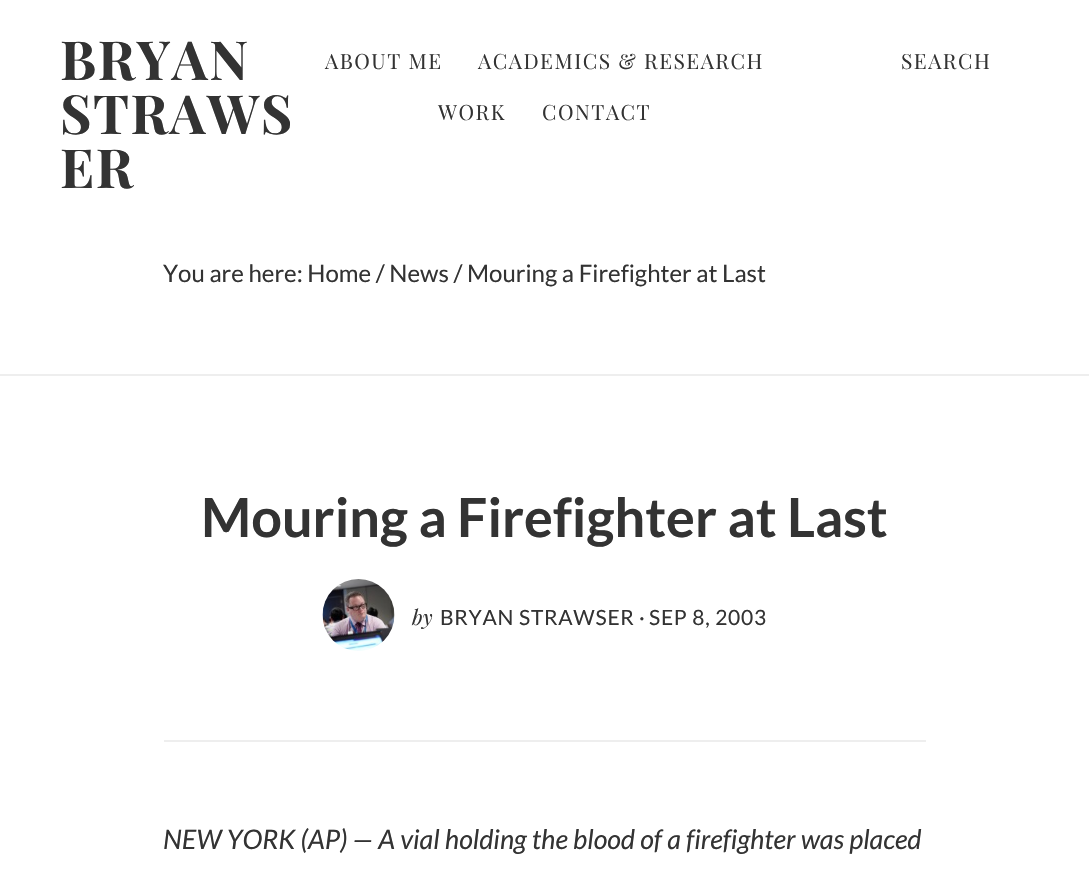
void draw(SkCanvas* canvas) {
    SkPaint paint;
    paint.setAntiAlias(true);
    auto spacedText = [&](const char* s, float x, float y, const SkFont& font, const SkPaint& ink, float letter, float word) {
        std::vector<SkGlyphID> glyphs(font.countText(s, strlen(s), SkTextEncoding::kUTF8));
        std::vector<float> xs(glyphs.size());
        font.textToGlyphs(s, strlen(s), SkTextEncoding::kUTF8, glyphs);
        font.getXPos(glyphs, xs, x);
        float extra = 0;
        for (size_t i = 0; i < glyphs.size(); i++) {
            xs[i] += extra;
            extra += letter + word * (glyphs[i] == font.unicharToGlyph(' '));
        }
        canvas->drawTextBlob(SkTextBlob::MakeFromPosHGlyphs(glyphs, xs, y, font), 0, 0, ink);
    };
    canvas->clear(0xFFFFFFFF);
    SkFont font1(fontMgr->matchFamilyStyle("Playfair Display", SkFontStyle::Bold()), 54);
    font1.setSubpixel(true);
    paint.setColor(0xFF333333);
    spacedText("BRYAN", 60, 80, font1, paint, 1.5f, 0);
    spacedText("STRAWS", 60, 134, font1, paint, 1.5f, 0);
    spacedText("ER", 60, 188, font1, paint, 1.5f, 0);
    SkFont font2(fontMgr->matchFamilyStyle("Playfair Display", SkFontStyle::Normal()), 21);
    font2.setSubpixel(true);
    spacedText("ABOUT ME", 325, 69, font2, paint, 1.5f, 0);
    spacedText("ACADEMICS & RESEARCH", 478, 69, font2, paint, 1.5f, 0);
    spacedText("WORK", 438, 120, font2, paint, 1.5f, 0);
    spacedText("CONTACT", 542, 120, font2, paint, 1.5f, 0);
    spacedText("SEARCH", 901, 69, font2, paint, 1.5f, 0);
    paint.setColor(0xFFEEEEEE);
    canvas->drawRect(SkRect::MakeXYWH(0, 374, 1089, 2), paint);
    SkFont font3(fontMgr->matchFamilyStyle("Lato", SkFontStyle::Normal()), 24);
    font3.setSubpixel(true);
    paint.setColor(0xFF333333);
    canvas->drawString("You are here: Home / News / Mouring a Firefighter at Last", 163, 282, font3, paint);
    paint.setColor(0xFFEEEEEE);
    canvas->drawRect(SkRect::MakeXYWH(164, 740, 762, 2), paint);
    SkFont font4(fontMgr->matchFamilyStyle("Lato", SkFontStyle::Bold()), 54);
    font4.setSubpixel(true);
    paint.setColor(0xFF333333);
    canvas->drawString("Mouring a Firefighter at Last", 201, 537, font4, paint);
    canvas->drawImageRect(SkImages::DeferredFromEncodedData(SkData::MakeFromFileName("img1.png")), SkRect::MakeXYWH(322, 579, 73, 72), SkSamplingOptions());
    SkFont font5(fontMgr->matchFamilyStyle("Playfair Display", SkFontStyle::Italic()), 21);
    font5.setSubpixel(true);
    canvas->drawString("by", 412, 625, font5, paint);
    SkFont font6(fontMgr->matchFamilyStyle("Lato", SkFontStyle::Normal()), 21);
    font6.setSubpixel(true);
    spacedText("BRYAN STRAWSER", 440, 625, font6, paint, 0.75f, 0);
    canvas->drawString("·", 639, 625, font6, paint);
    spacedText("SEP 8, 2003", 649, 625, font6, paint, 0.75f, 0);
    SkFont font7(fontMgr->matchFamilyStyle("Lato", SkFontStyle::Italic()), 27);
    font7.setSubpixel(true);
    canvas->drawString("NEW YORK (AP) — A vial holding the blood of a firefighter was placed", 163, 849, font7, paint);
}
